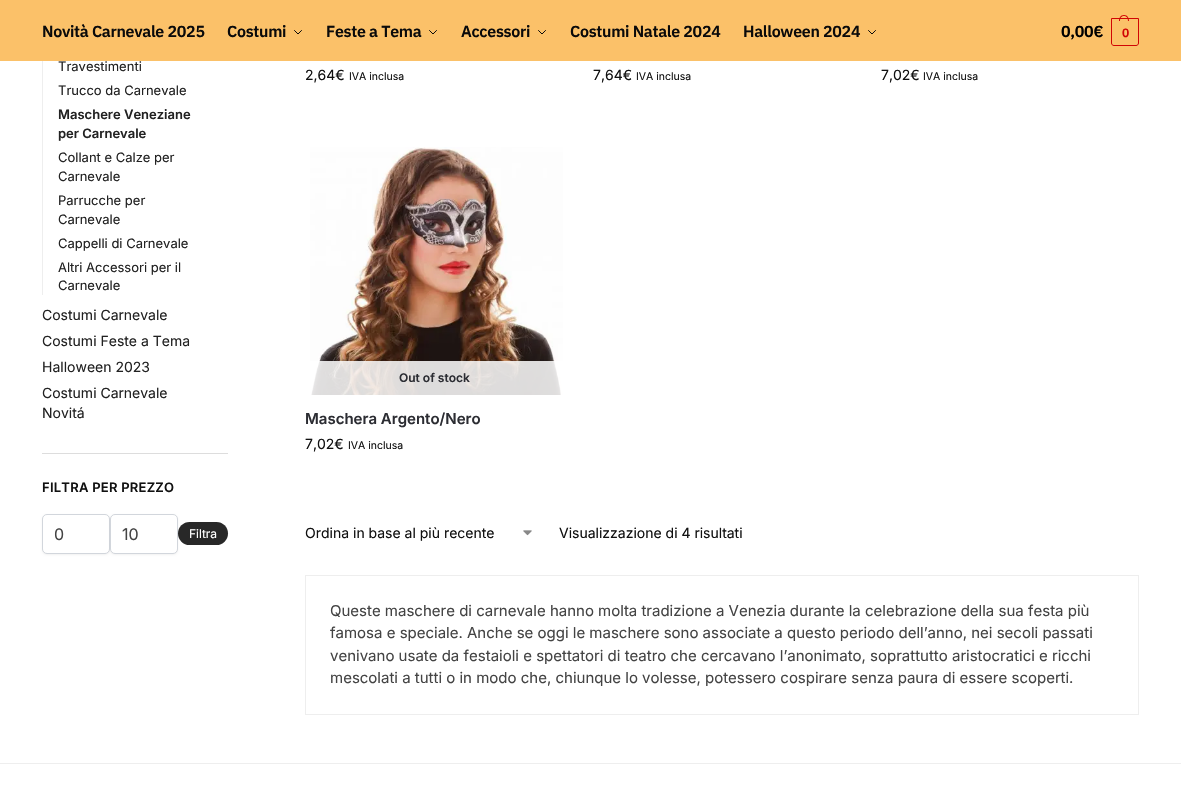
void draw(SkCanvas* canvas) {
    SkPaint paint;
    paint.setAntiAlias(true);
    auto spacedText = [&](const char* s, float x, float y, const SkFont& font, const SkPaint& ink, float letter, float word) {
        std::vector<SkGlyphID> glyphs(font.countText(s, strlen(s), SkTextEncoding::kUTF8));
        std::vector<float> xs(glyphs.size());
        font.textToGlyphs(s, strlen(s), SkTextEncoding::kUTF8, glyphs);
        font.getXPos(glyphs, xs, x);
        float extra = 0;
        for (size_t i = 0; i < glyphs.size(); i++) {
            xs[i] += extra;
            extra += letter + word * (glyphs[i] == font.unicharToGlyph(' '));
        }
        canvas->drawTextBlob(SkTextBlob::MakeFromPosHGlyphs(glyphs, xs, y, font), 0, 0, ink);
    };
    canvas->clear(0xFFFFFFFF);
    paint.setColor(0xFFFBC169);
    canvas->drawRect(SkRect::MakeXYWH(0, 0, 1181, 61), paint);
    SkFont font1(fontMgr->matchFamilyStyle("IBM Plex Sans", SkFontStyle(600, SkFontStyle::kNormal_Width, SkFontStyle::kUpright_Slant)), 16);
    font1.setSubpixel(true);
    paint.setColor(0xFF0A0A0A);
    spacedText("Novità Carnevale 2025", 42, 37, font1, paint, -0.3f, 0);
    spacedText("Costumi", 227, 37, font1, paint, -0.3f, 0);
    paint.setStyle(SkPaint::kStroke_Style);
    paint.setStrokeWidth(1);
    paint.setStrokeCap(SkPaint::kRound_Cap);
    paint.setStrokeJoin(SkPaint::kRound_Join);
    canvas->drawPath(SkPathBuilder().moveTo(301.5f, 30.5f).lineTo(298, 34).lineTo(294.5f, 30.5f).detach(), paint);
    paint.setStyle(SkPaint::kFill_Style);
    spacedText("Feste a Tema", 326, 37, font1, paint, -0.3f, 0);
    paint.setStyle(SkPaint::kStroke_Style);
    canvas->drawPath(SkPathBuilder().moveTo(436.5f, 30.5f).lineTo(433, 34).lineTo(429.5f, 30.5f).detach(), paint);
    paint.setStyle(SkPaint::kFill_Style);
    spacedText("Accessori", 461, 37, font1, paint, -0.3f, 0);
    paint.setStyle(SkPaint::kStroke_Style);
    canvas->drawPath(SkPathBuilder().moveTo(545.5f, 30.5f).lineTo(542, 34).lineTo(538.5f, 30.5f).detach(), paint);
    paint.setStyle(SkPaint::kFill_Style);
    spacedText("Costumi Natale 2024", 570, 37, font1, paint, -0.3f, 0);
    spacedText("Halloween 2024", 743, 37, font1, paint, -0.3f, 0);
    paint.setStyle(SkPaint::kStroke_Style);
    canvas->drawPath(SkPathBuilder().moveTo(875.5f, 30.5f).lineTo(872, 34).lineTo(868.5f, 30.5f).detach(), paint);
    paint.setStyle(SkPaint::kFill_Style);
    paint.setColor(0xFF000000);
    spacedText("0,00€", 1061, 37, font1, paint, -0.3f, 0);
    paint.setStyle(SkPaint::kStroke_Style);
    paint.setStrokeCap(SkPaint::kButt_Cap);
    paint.setStrokeJoin(SkPaint::kMiter_Join);
    paint.setColor(0xFFD10404);
    canvas->drawPath(SkPathBuilder().moveTo(1111.5f, 18.5f).lineTo(1138.5f, 18.5f).lineTo(1138.5f, 43).cubicTo(1138.5f, 44.5f, 1137.5f, 45.5f, 1136, 45.5f).lineTo(1114, 45.5f).cubicTo(1112.5f, 45.5f, 1111.5f, 44.5f, 1111.5f, 43).close().detach(), paint);
    paint.setStyle(SkPaint::kFill_Style);
    canvas->drawPath(SkPathBuilder(SkPathFillType::kEvenOdd).moveTo(1124, 15).cubicTo(1127.5f, 15, 1129, 18, 1129, 21).lineTo(1119, 21).cubicTo(1119, 18, 1120.5f, 15, 1124, 15).close().moveTo(1124, 16).cubicTo(1127, 16, 1128, 18.5f, 1128, 21).lineTo(1120, 21).cubicTo(1120, 18.5f, 1121, 16, 1124, 16).close().detach(), paint);
    SkFont font2(fontMgr->matchFamilyStyle("IBM Plex Sans", SkFontStyle(600, SkFontStyle::kNormal_Width, SkFontStyle::kUpright_Slant)), 12);
    font2.setSubpixel(true);
    spacedText("0", 1122, 37, font2, paint, -1, 0);
    paint.setColor(0xFFDDDDDD);
    canvas->drawRect(SkRect::MakeXYWH(42, 453, 186, 1), paint);
    paint.setColor(0xFFEEEEEE);
    canvas->drawRect(SkRect::MakeXYWH(42, 61, 1, 234), paint);
    SkFont font3(fontMgr->matchFamilyStyle("Inter", SkFontStyle::Normal()), 13);
    font3.setSubpixel(true);
    paint.setColor(0xFF222222);
    canvas->drawString("Travestimenti", 58, 71, font3, paint);
    canvas->drawString("Trucco da Carnevale", 58, 95, font3, paint);
    SkFont font4(fontMgr->matchFamilyStyle("Inter", SkFontStyle(600, SkFontStyle::kNormal_Width, SkFontStyle::kUpright_Slant)), 13);
    font4.setSubpixel(true);
    canvas->drawString("Maschere Veneziane", 58, 119, font4, paint);
    canvas->drawString("per Carnevale", 58, 138, font4, paint);
    canvas->drawString("Collant e Calze per", 58, 162, font3, paint);
    canvas->drawString("Carnevale", 58, 181, font3, paint);
    canvas->drawString("Parrucche per", 58, 205, font3, paint);
    canvas->drawString("Carnevale", 58, 224, font3, paint);
    canvas->drawString("Cappelli di Carnevale", 58, 248, font3, paint);
    canvas->drawString("Altri Accessori per il", 58, 272, font3, paint);
    canvas->drawString("Carnevale", 58, 290, font3, paint);
    SkFont font5(fontMgr->matchFamilyStyle("Inter", SkFontStyle::Normal()), 14);
    font5.setSubpixel(true);
    canvas->drawString("Costumi Carnevale", 42, 320, font5, paint);
    canvas->drawString("Costumi Feste a Tema", 42, 346, font5, paint);
    canvas->drawString("Halloween 2023", 42, 372, font5, paint);
    canvas->drawString("Costumi Carnevale", 42, 398, font5, paint);
    canvas->drawString("Novitá", 42, 418, font5, paint);
    paint.setColor(0xFF111111);
    spacedText("FILTRA PER PREZZO", 42, 492, font4, paint, 0.25f, 0);
    paint.setColor(0x0D000000);
    paint.setMaskFilter(SkMaskFilter::MakeBlur(kNormal_SkBlurStyle, 1));
    canvas->drawRoundRect(SkRect::MakeXYWH(42, 515, 68, 40), 5, 5, paint);
    paint.setMaskFilter(nullptr);
    paint.setColor(0xFFFFFFFF);
    canvas->drawRoundRect(SkRect::MakeXYWH(42.5f, 514.5f, 67, 39), 4.5f, 4.5f, paint);
    paint.setStyle(SkPaint::kStroke_Style);
    paint.setColor(0xFFD2D6DC);
    canvas->drawRoundRect(SkRect::MakeXYWH(42.5f, 514.5f, 67, 39), 4.5f, 4.5f, paint);
    SkFont font6(fontMgr->matchFamilyStyle("Inter", SkFontStyle::Normal()), 16);
    font6.setSubpixel(true);
    paint.setStyle(SkPaint::kFill_Style);
    paint.setColor(0xFF444444);
    canvas->drawString("0", 54, 540, font6, paint);
    paint.setColor(0x0D000000);
    paint.setMaskFilter(SkMaskFilter::MakeBlur(kNormal_SkBlurStyle, 1));
    canvas->drawRoundRect(SkRect::MakeXYWH(110, 515, 68, 40), 5, 5, paint);
    paint.setMaskFilter(nullptr);
    paint.setColor(0xFFFFFFFF);
    canvas->drawRoundRect(SkRect::MakeXYWH(110.5f, 514.5f, 67, 39), 4.5f, 4.5f, paint);
    paint.setStyle(SkPaint::kStroke_Style);
    paint.setColor(0xFFD2D6DC);
    canvas->drawRoundRect(SkRect::MakeXYWH(110.5f, 514.5f, 67, 39), 4.5f, 4.5f, paint);
    paint.setStyle(SkPaint::kFill_Style);
    paint.setColor(0xFF444444);
    canvas->drawString("10", 122, 540, font6, paint);
    paint.setColor(0xFF282828);
    canvas->drawRoundRect(SkRect::MakeXYWH(178, 522, 50, 23), 11.5f, 11.5f, paint);
    SkFont font7(fontMgr->matchFamilyStyle("Inter", SkFontStyle::Normal()), 12);
    font7.setSubpixel(true);
    paint.setColor(0xFFFFFFFF);
    canvas->drawString("Filtra", 189, 538, font7, paint);
    paint.setColor(0xFF111111);
    canvas->drawString("2,64€", 305, 80, font5, paint);
    SkFont font8(fontMgr->matchFamilyStyle("Inter", SkFontStyle::Normal()), 10.5f);
    font8.setSubpixel(true);
    canvas->drawString("IVA inclusa", 349, 80, font8, paint);
    canvas->drawString("7,64€", 593, 80, font5, paint);
    canvas->drawString("IVA inclusa", 636, 80, font8, paint);
    canvas->drawString("7,02€", 881, 80, font5, paint);
    canvas->drawString("IVA inclusa", 923, 80, font8, paint);
    canvas->drawImageRect(SkImages::DeferredFromEncodedData(SkData::MakeFromFileName("img1.png")), SkRect::MakeXYWH(310, 147, 253, 248), SkSamplingOptions());
    paint.setColor(0xD9FFFFFF);
    canvas->drawRect(SkRect::MakeXYWH(310, 361, 253, 34), paint);
    SkFont font9(fontMgr->matchFamilyStyle("Inter", SkFontStyle(600, SkFontStyle::kNormal_Width, SkFontStyle::kUpright_Slant)), 12);
    font9.setSubpixel(true);
    paint.setColor(0xFF2C2D33);
    canvas->drawString("Out of stock", 399, 382, font9, paint);
    SkFont font10(fontMgr->matchFamilyStyle("Inter", SkFontStyle(600, SkFontStyle::kNormal_Width, SkFontStyle::kUpright_Slant)), 15);
    font10.setSubpixel(true);
    canvas->drawString("Maschera Argento/Nero", 305, 424, font10, paint);
    paint.setColor(0xFF111111);
    canvas->drawString("7,02€", 305, 449, font5, paint);
    canvas->drawString("IVA inclusa", 348, 449, font8, paint);
    canvas->drawImageRect(SkImages::DeferredFromEncodedData(SkData::MakeFromFileName("img2.png")), SkRect::MakeXYWH(523, 530, 9, 6), SkSamplingOptions());
    canvas->drawString("Ordina in base al più recente", 305, 538, font5, paint);
    canvas->drawString("Visualizzazione di 4 risultati", 559, 538, font5, paint);
    paint.setStyle(SkPaint::kStroke_Style);
    paint.setColor(0xFFEEEEEE);
    canvas->drawRect(SkRect::MakeXYWH(305.5f, 575.5f, 833, 139), paint);
    SkFont font11(fontMgr->matchFamilyStyle("Inter", SkFontStyle::Normal()), 15);
    font11.setSubpixel(true);
    paint.setStyle(SkPaint::kFill_Style);
    paint.setColor(0xFF444444);
    canvas->drawString("Queste maschere di carnevale hanno molta tradizione a Venezia durante la celebrazione della sua festa più", 330, 616, font11, paint);
    canvas->drawString("famosa e speciale. Anche se oggi le maschere sono associate a questo periodo dell’anno, nei secoli passati", 330, 638, font11, paint);
    canvas->drawString("venivano usate da festaioli e spettatori di teatro che cercavano l’anonimato, soprattutto aristocratici e ricchi", 330, 661, font11, paint);
    canvas->drawString("mescolati a tutti o in modo che, chiunque lo volesse, potessero cospirare senza paura di essere scoperti.", 330, 683, font11, paint);
    paint.setColor(0xFFEEEEEE);
    canvas->drawRect(SkRect::MakeXYWH(0, 763, 1181, 1), paint);
}
